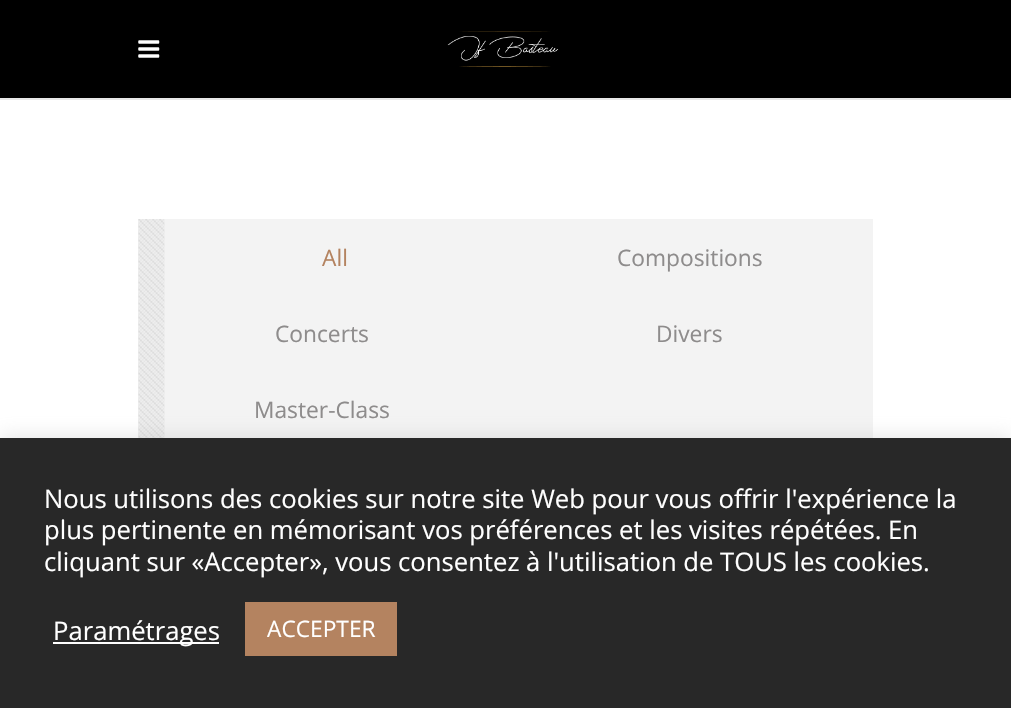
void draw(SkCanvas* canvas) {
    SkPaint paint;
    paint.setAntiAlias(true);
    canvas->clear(0xFFFFFFFF);
    paint.setColor(0xFF000000);
    canvas->drawRect(SkRect::MakeXYWH(0, 0, 1011, 98), paint);
    canvas->drawImageRect(SkImages::DeferredFromEncodedData(SkData::MakeFromFileName("img1.png")), SkRect::MakeXYWH(138, 40, 22, 18), SkSamplingOptions());
    canvas->drawImageRect(SkImages::DeferredFromEncodedData(SkData::MakeFromFileName("img2.png")), SkRect::MakeXYWH(447, 31, 112, 36), SkSamplingOptions());
    paint.setColor(0xFFE9E9E9);
    canvas->drawRect(SkRect::MakeXYWH(0, 98, 1011, 2), paint);
    paint.setColor(0xFFF3F3F3);
    canvas->drawRect(SkRect::MakeXYWH(138, 219, 735, 219), paint);
    canvas->drawImageRect(SkImages::DeferredFromEncodedData(SkData::MakeFromFileName("img3.png")), SkRect::MakeXYWH(138, 219, 27, 219), SkSamplingOptions());
    SkFont font1(fontMgr->matchFamilyStyle("Open Sans", SkFontStyle::Normal()), 22.75f);
    font1.setSubpixel(true);
    paint.setColor(0xFFB48360);
    canvas->drawString("All", 322, 266, font1, paint);
    paint.setColor(0xFF8E8C8C);
    canvas->drawString("Compositions", 617, 266, font1, paint);
    canvas->drawString("Concerts", 275, 342, font1, paint);
    canvas->drawString("Divers", 656, 342, font1, paint);
    canvas->drawString("Master-Class", 254, 418, font1, paint);
    paint.setColor(0x4DACABAB);
    paint.setMaskFilter(SkMaskFilter::MakeBlur(kNormal_SkBlurStyle, 9));
    canvas->drawRect(SkRect::MakeXYWH(0, 436, 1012, 271), paint);
    paint.setMaskFilter(nullptr);
    paint.setColor(0xFF282828);
    canvas->drawRect(SkRect::MakeXYWH(0, 438, 1011, 270), paint);
    SkFont font2(fontMgr->matchFamilyStyle("Open Sans", SkFontStyle::Normal()), 25.65f);
    font2.setSubpixel(true);
    paint.setColor(0xFFFFFFFF);
    canvas->drawString("Nous utilisons des cookies sur notre site Web pour vous offrir l'expérience la", 44, 508, font2, paint);
    canvas->drawString("plus pertinente en mémorisant vos préférences et les visites répétées. En", 44, 539, font2, paint);
    canvas->drawString("cliquant sur «Accepter», vous consentez à l'utilisation de TOUS les cookies.", 44, 571, font2, paint);
    canvas->drawRect(SkRect::MakeXYWH(53, 642, 166, 2), paint);
    canvas->drawString("Paramétrages", 53, 640, font2, paint);
    paint.setColor(0xFFB48360);
    canvas->drawRect(SkRect::MakeXYWH(245, 602, 152, 54), paint);
    paint.setColor(0xFFFFFFFF);
    canvas->drawString("ACCEPTER", 267, 637, font1, paint);
}
